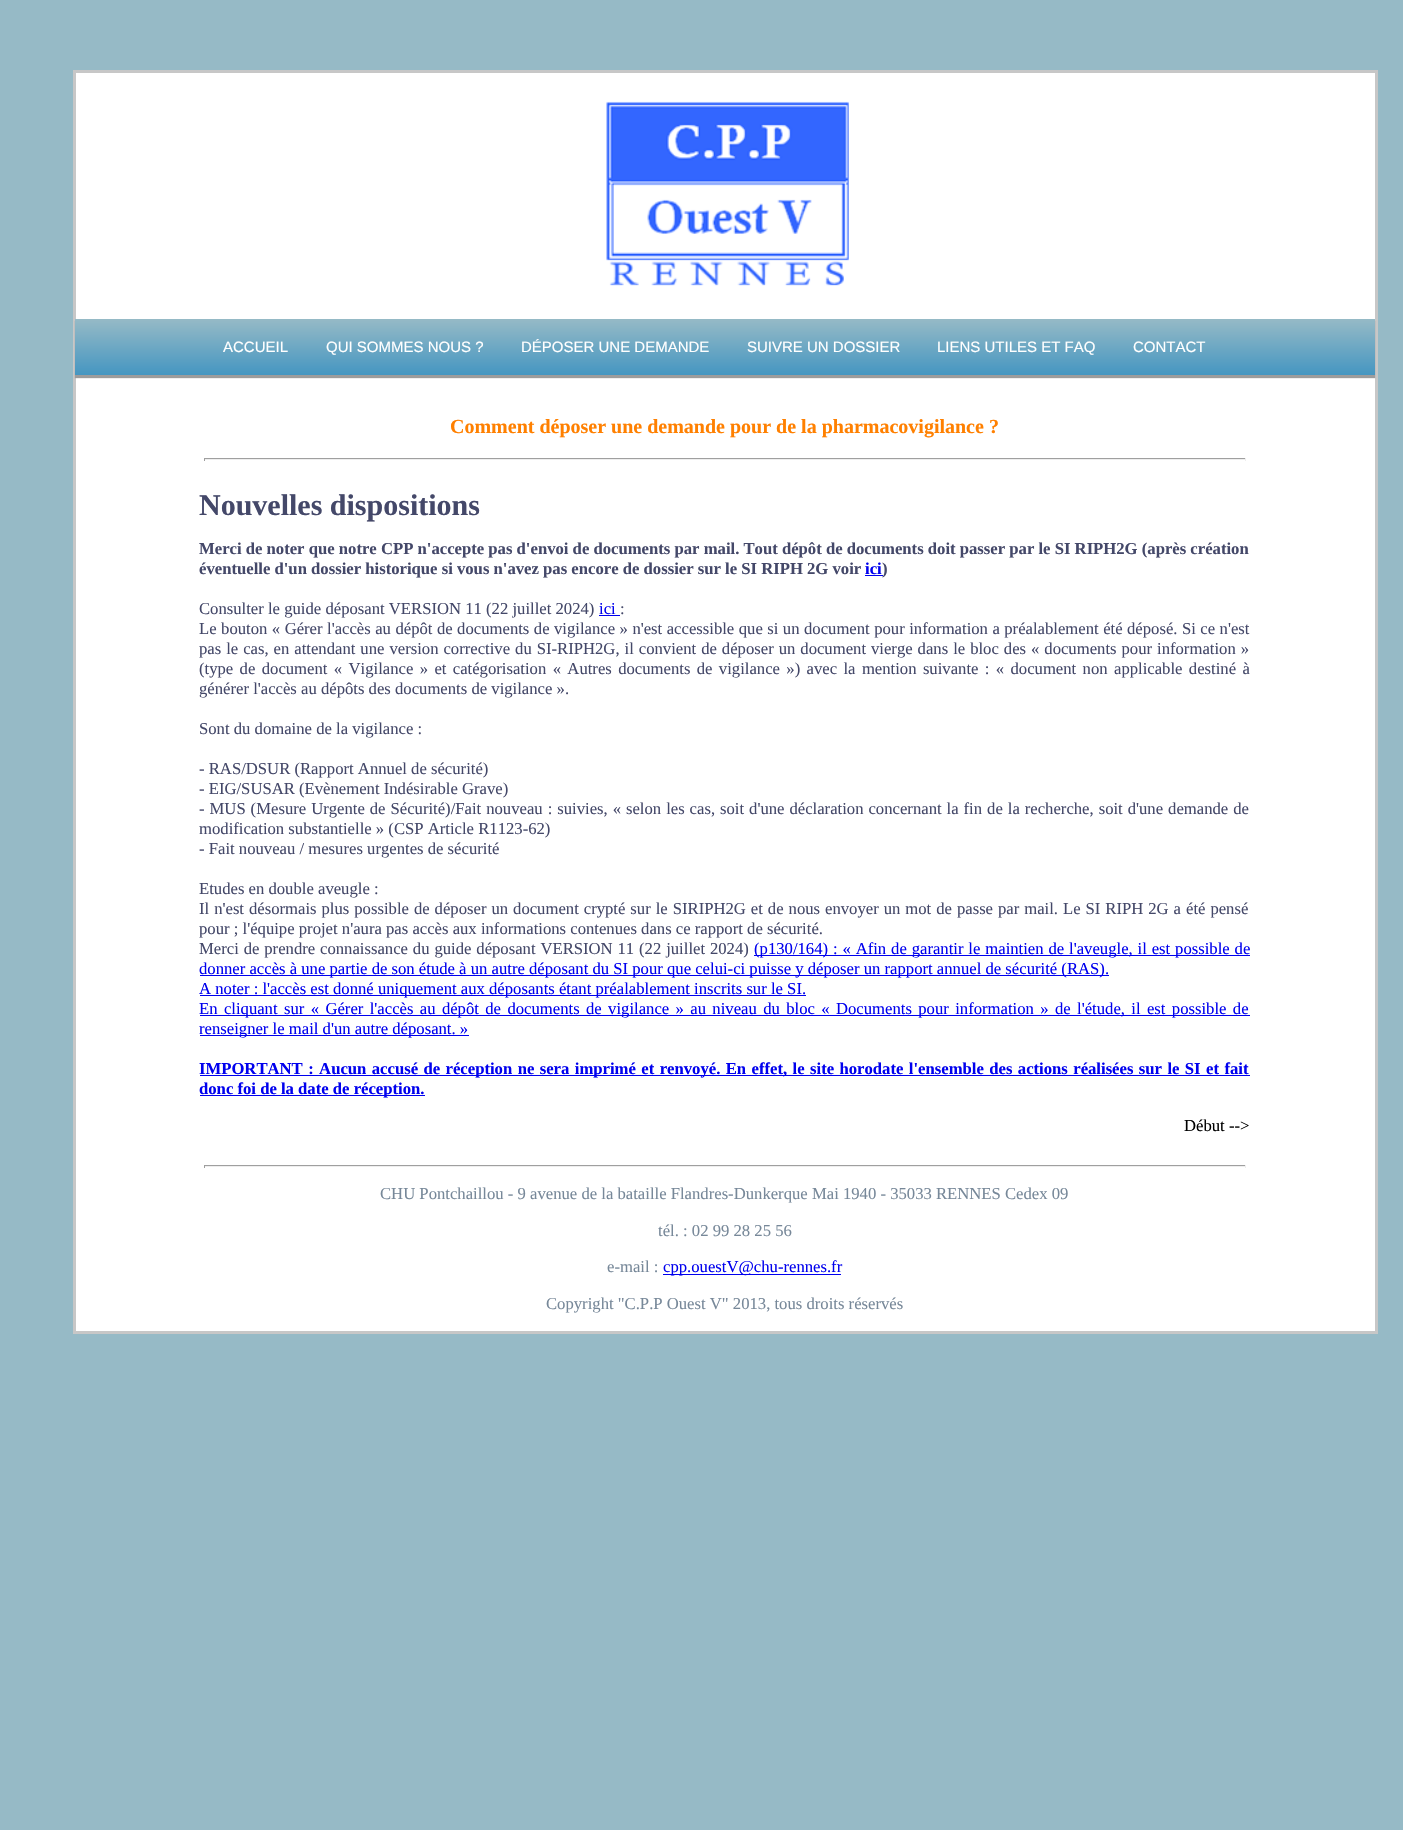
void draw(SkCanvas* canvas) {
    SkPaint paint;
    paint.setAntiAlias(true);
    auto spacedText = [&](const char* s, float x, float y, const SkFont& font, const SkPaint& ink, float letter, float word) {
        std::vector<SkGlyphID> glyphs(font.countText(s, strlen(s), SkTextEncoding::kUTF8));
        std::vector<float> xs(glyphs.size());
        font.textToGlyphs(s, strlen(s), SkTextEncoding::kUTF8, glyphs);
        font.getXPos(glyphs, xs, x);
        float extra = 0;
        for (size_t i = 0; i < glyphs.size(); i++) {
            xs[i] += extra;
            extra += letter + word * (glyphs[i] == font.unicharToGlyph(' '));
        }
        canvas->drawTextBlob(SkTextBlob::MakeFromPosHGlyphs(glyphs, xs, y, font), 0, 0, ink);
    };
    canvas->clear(0xFF96BAC6);
    paint.setColor(0xFFFFFFFF);
    canvas->drawRect(SkRect::MakeXYWH(74.5f, 71.5f, 1302, 1261), paint);
    paint.setStyle(SkPaint::kStroke_Style);
    paint.setStrokeWidth(3);
    paint.setColor(0xFFC7C7C7);
    canvas->drawRect(SkRect::MakeXYWH(74.5f, 71.5f, 1302, 1261), paint);
    canvas->drawImageRect(SkImages::DeferredFromEncodedData(SkData::MakeFromFileName("img1.png")), SkRect::MakeXYWH(606, 101, 243, 185), SkSamplingOptions());
    paint.setStyle(SkPaint::kFill_Style);
    paint.setColor(0xFF9C9C9C);
    paint.setMaskFilter(SkMaskFilter::MakeBlur(kNormal_SkBlurStyle, 0.5f));
    canvas->drawRect(SkRect::MakeXYWH(75, 321, 1300, 57), paint);
    paint.setMaskFilter(nullptr);
    {
        const SkColor colors[] = {0xFF96BAC6, 0xFF4596C1};
        const float stops[] = {0, 1};
        const SkPoint ends[] = {{725, 319}, {725, 375}};
        paint.setShader(SkGradientShader::MakeLinear(ends, colors, stops, 2, SkTileMode::kClamp));
        paint.setAlpha(255);
    }
    canvas->drawRect(SkRect::MakeXYWH(75, 319, 1300, 56), paint);
    SkFont font1(fontMgr->matchFamilyStyle("Liberation Sans", SkFontStyle::Normal()), 15);
    font1.setSubpixel(true);
    paint.setShader(nullptr);
    paint.setColor(0xFFFFFFFF);
    canvas->drawString("ACCUEIL", 223, 352, font1, paint);
    canvas->drawString("QUI SOMMES NOUS ?", 326, 352, font1, paint);
    canvas->drawString("DÉPOSER UNE DEMANDE", 521, 352, font1, paint);
    canvas->drawString("SUIVRE UN DOSSIER", 747, 352, font1, paint);
    canvas->drawString("LIENS UTILES ET FAQ", 937, 352, font1, paint);
    canvas->drawString("CONTACT", 1133, 352, font1, paint);
    SkFont font2(fontMgr->matchFamilyStyle("Liberation Serif", SkFontStyle::Bold()), 20);
    font2.setSubpixel(true);
    paint.setColor(0xFFFF8000);
    canvas->drawString("Comment déposer une demande pour de la pharmacovigilance ?", 450, 433, font2, paint);
    paint.setColor(0xFF9F9F9F);
    canvas->drawRect(SkRect::MakeXYWH(204, 458, 1042, 1), paint);
    paint.setColor(0xFFEEEEEE);
    canvas->drawRect(SkRect::MakeXYWH(1245, 458, 1, 3), paint);
    canvas->drawRect(SkRect::MakeXYWH(204, 459, 1042, 1), paint);
    paint.setColor(0xFF9F9F9F);
    canvas->drawRect(SkRect::MakeXYWH(204, 458, 1, 3), paint);
    SkFont font3(fontMgr->matchFamilyStyle("Liberation Serif", SkFontStyle::Bold()), 30);
    font3.setSubpixel(true);
    paint.setColor(0xFF444869);
    canvas->drawString("Nouvelles dispositions", 199, 515, font3, paint);
    SkFont font4(fontMgr->matchFamilyStyle("Liberation Serif", SkFontStyle::Bold()), 16.67f);
    font4.setSubpixel(true);
    canvas->drawString("Merci de noter que notre CPP n'accepte pas d'envoi de documents par mail. Tout dépôt de documents doit passer par le SI RIPH2G (après création", 199, 554, font4, paint);
    canvas->drawString("éventuelle d'un dossier historique si vous n'avez pas encore de dossier sur le SI RIPH 2G voir", 199, 574, font4, paint);
    paint.setColor(0xFF0000EE);
    canvas->drawString("ici", 865, 574, font4, paint);
    canvas->drawRect(SkRect::MakeXYWH(865, 575, 18, 1), paint);
    paint.setColor(0xFF444869);
    canvas->drawString(")", 882, 574, font4, paint);
    SkFont font5(fontMgr->matchFamilyStyle("Liberation Serif", SkFontStyle::Normal()), 16.67f);
    font5.setSubpixel(true);
    canvas->drawString("Consulter le guide déposant VERSION 11 (22 juillet 2024)", 199, 614, font5, paint);
    paint.setColor(0xFF0000EE);
    canvas->drawString("ici", 599, 614, font5, paint);
    canvas->drawRect(SkRect::MakeXYWH(599, 615, 21, 1), paint);
    paint.setColor(0xFF444869);
    canvas->drawString(":", 620, 614, font5, paint);
    spacedText("Le bouton « Gérer l'accès au dépôt de documents de vigilance » n'est accessible que si un document pour information a préalablement été déposé. Si ce n'est", 199, 634, font5, paint, 0, 0.3f);
    spacedText("pas le cas, en attendant une version corrective du SI-RIPH2G, il convient de déposer un document vierge dans le bloc des « documents pour information »", 199, 654, font5, paint, 0, 0.8f);
    spacedText("(type de document « Vigilance » et catégorisation « Autres documents de vigilance ») avec la mention suivante : « document non applicable destiné à", 199, 674, font5, paint, 0, 2.2f);
    canvas->drawString("générer l'accès au dépôts des documents de vigilance ».", 199, 694, font5, paint);
    canvas->drawString("Sont du domaine de la vigilance :", 199, 734, font5, paint);
    canvas->drawString("- RAS/DSUR (Rapport Annuel de sécurité)", 199, 774, font5, paint);
    canvas->drawString("- EIG/SUSAR (Evènement Indésirable Grave)", 199, 794, font5, paint);
    spacedText("- MUS (Mesure Urgente de Sécurité)/Fait nouveau : suivies, « selon les cas, soit d'une déclaration concernant la fin de la recherche, soit d'une demande de", 199, 814, font5, paint, 0, 0.8f);
    canvas->drawString("modification substantielle » (CSP Article R1123-62)", 199, 834, font5, paint);
    canvas->drawString("- Fait nouveau / mesures urgentes de sécurité", 199, 854, font5, paint);
    canvas->drawString("Etudes en double aveugle :", 199, 894, font5, paint);
    spacedText("Il n'est désormais plus possible de déposer un document crypté sur le SIRIPH2G et de nous envoyer un mot de passe par mail. Le SI RIPH 2G a été pensé", 199, 914, font5, paint, 0, 0.8f);
    canvas->drawString("pour ; l'équipe projet n'aura pas accès aux informations contenues dans ce rapport de sécurité.", 199, 934, font5, paint);
    spacedText("Merci de prendre connaissance du guide déposant VERSION 11 (22 juillet 2024)", 199, 954, font5, paint, 0, 0.7f);
    paint.setColor(0xFF0000EE);
    canvas->drawRect(SkRect::MakeXYWH(754, 955, 496, 1), paint);
    spacedText("(p130/164) : « Afin de garantir le maintien de l'aveugle, il est possible de", 754, 954, font5, paint, 0, 0.7f);
    canvas->drawRect(SkRect::MakeXYWH(200, 975, 909, 1), paint);
    canvas->drawString("donner accès à une partie de son étude à un autre déposant du SI pour que celui-ci puisse y déposer un rapport annuel de sécurité (RAS).", 199, 974, font5, paint);
    canvas->drawRect(SkRect::MakeXYWH(200, 995, 606, 1), paint);
    canvas->drawString("A noter : l'accès est donné uniquement aux déposants étant préalablement inscrits sur le SI.", 199, 994, font5, paint);
    canvas->drawRect(SkRect::MakeXYWH(200, 1015, 1050, 1), paint);
    spacedText("En cliquant sur « Gérer l'accès au dépôt de documents de vigilance » au niveau du bloc « Documents pour information » de l'étude, il est possible de", 199, 1014, font5, paint, 0, 2.2f);
    canvas->drawRect(SkRect::MakeXYWH(200, 1035, 269, 1), paint);
    canvas->drawString("renseigner le mail d'un autre déposant. »", 199, 1034, font5, paint);
    canvas->drawRect(SkRect::MakeXYWH(200, 1075, 1050, 1), paint);
    spacedText("IMPORTANT : Aucun accusé de réception ne sera imprimé et renvoyé. En effet, le site horodate l'ensemble des actions réalisées sur le SI et fait", 199, 1074, font4, paint, 0, 1.25f);
    canvas->drawRect(SkRect::MakeXYWH(200, 1095, 225, 1), paint);
    canvas->drawString("donc foi de la date de réception.", 199, 1094, font4, paint);
    paint.setColor(0xFF000000);
    canvas->drawString("Début -->", 1184, 1131, font5, paint);
    paint.setColor(0xFF9F9F9F);
    canvas->drawRect(SkRect::MakeXYWH(204, 1165, 1042, 1), paint);
    paint.setColor(0xFFEEEEEE);
    canvas->drawRect(SkRect::MakeXYWH(1245, 1165, 1, 3), paint);
    canvas->drawRect(SkRect::MakeXYWH(204, 1166, 1042, 1), paint);
    paint.setColor(0xFF9F9F9F);
    canvas->drawRect(SkRect::MakeXYWH(204, 1165, 1, 3), paint);
    paint.setColor(0xFF778899);
    canvas->drawString("CHU Pontchaillou - 9 avenue de la bataille Flandres-Dunkerque Mai 1940 - 35033 RENNES Cedex 09", 380, 1199, font5, paint);
    canvas->drawString("tél. : 02 99 28 25 56", 658, 1236, font5, paint);
    canvas->drawString("e-mail :", 607, 1272, font5, paint);
    paint.setColor(0xFF0000EE);
    canvas->drawRect(SkRect::MakeXYWH(663, 1274, 178, 1), paint);
    canvas->drawString("cpp.ouestV@chu-rennes.fr", 663, 1272, font5, paint);
    paint.setColor(0xFF778899);
    canvas->drawString("Copyright \"C.P.P Ouest V\" 2013, tous droits réservés", 546, 1309, font5, paint);
}
